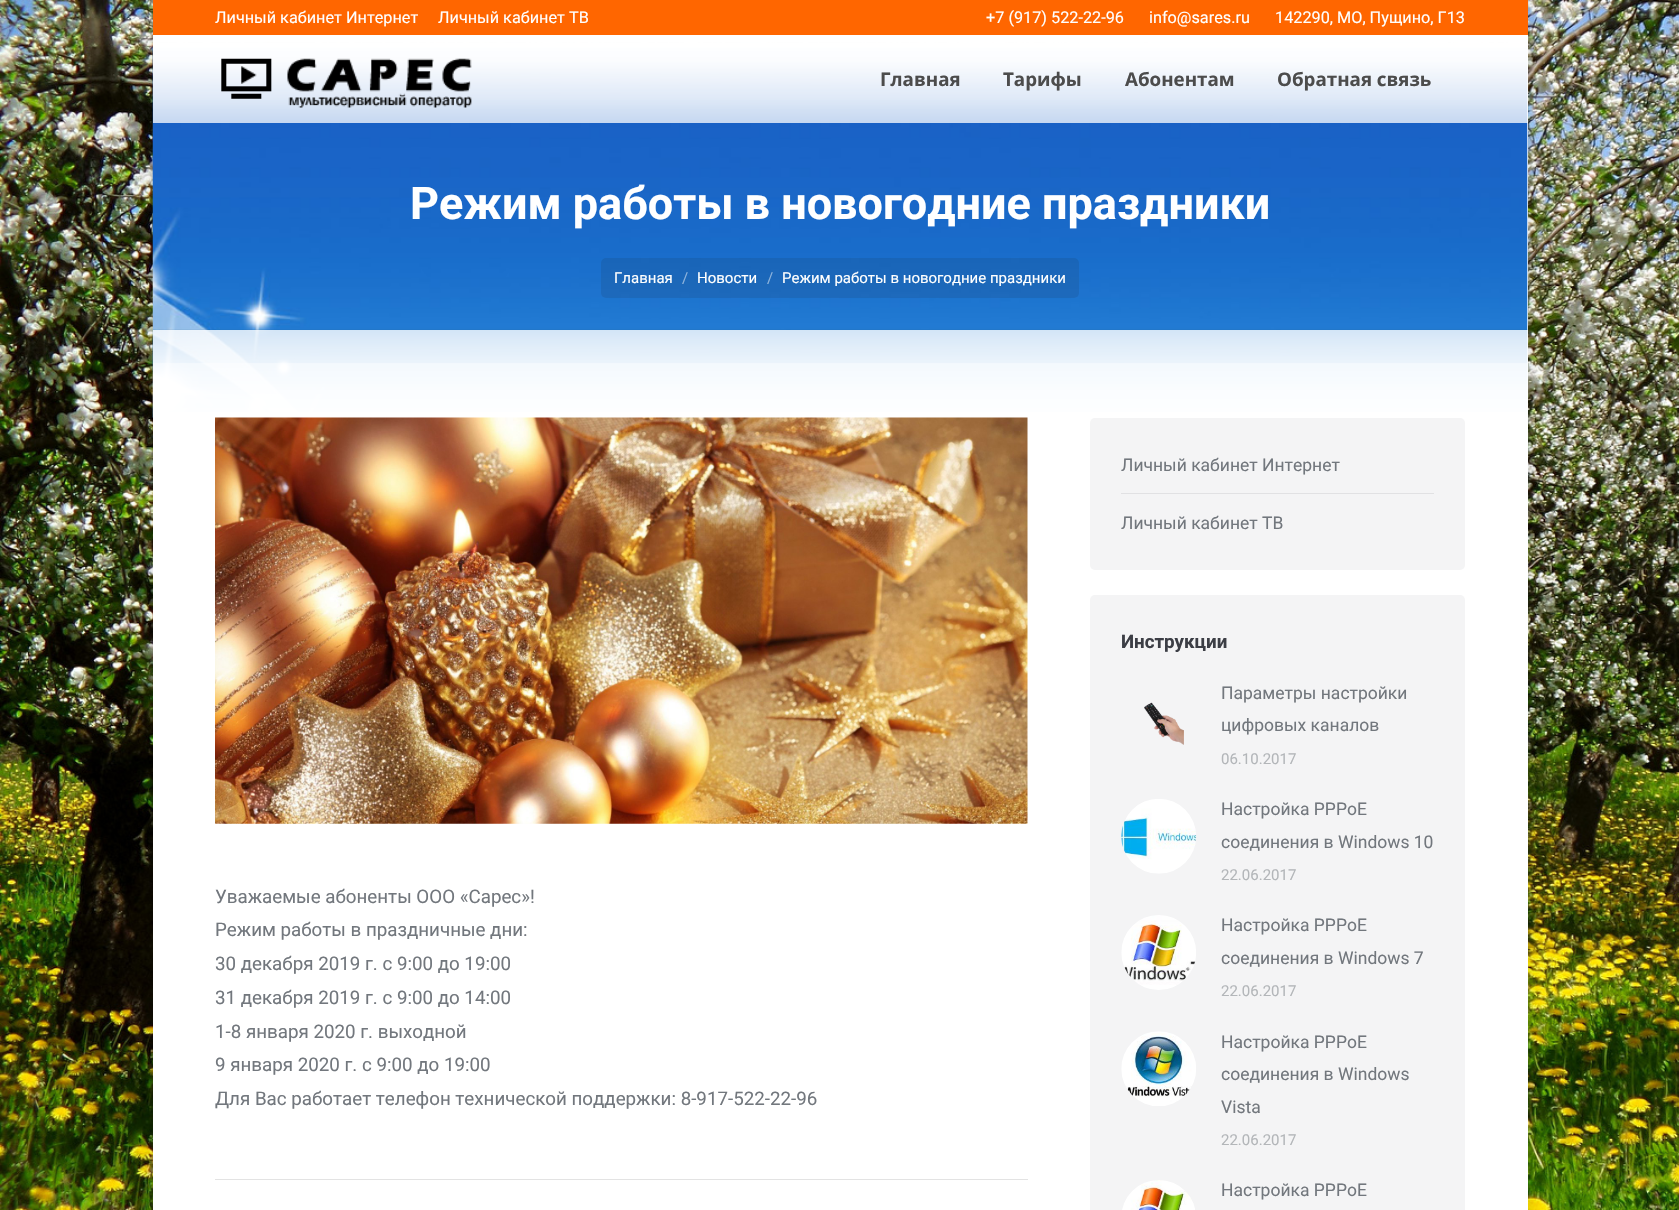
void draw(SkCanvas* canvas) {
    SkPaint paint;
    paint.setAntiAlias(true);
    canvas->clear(0xFFFFFFFF);
    canvas->drawImageRect(SkImages::DeferredFromEncodedData(SkData::MakeFromFileName("img1.png")), SkRect::MakeXYWH(0, 0, 1679, 1210), SkSamplingOptions());
    paint.setColor(0x26000000);
    paint.setMaskFilter(SkMaskFilter::MakeBlur(kNormal_SkBlurStyle, 7.5f));
    canvas->drawRect(SkRect::MakeXYWH(153, 0, 1375, 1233), paint);
    paint.setMaskFilter(nullptr);
    paint.setColor(0xFFFFFFFF);
    canvas->drawRect(SkRect::MakeXYWH(153, 43, 1375, 369), paint);
    canvas->drawImageRect(SkImages::DeferredFromEncodedData(SkData::MakeFromFileName("img3.png")), SkRect::MakeXYWH(152, 47, 1376, 371), SkSamplingOptions());
    {
        const SkColor colors[] = {0xBFFFFFFF, 0xCCFFFFFF, 0xDBFFFFFF, 0xE6FFFFFF, 0xF0FFFFFF, 0xFAFFFFFF, 0xFCFFFFFF, 0xFFFFFFFF};
        const float stops[] = {0, 0.1f, 0.2f, 0.31f, 0.41f, 0.51f, 0.61f, 0.71f};
        const SkPoint ends[] = {{840, 123}, {840, 0}};
        paint.setShader(SkGradientShader::MakeLinear(ends, colors, stops, 8, SkTileMode::kClamp));
        paint.setAlpha(255);
    }
    canvas->drawRect(SkRect::MakeXYWH(153, 35, 1375, 88), paint);
    paint.setShader(nullptr);
    paint.setColor(0xFFFF6600);
    canvas->drawRect(SkRect::MakeXYWH(153, 0, 1375, 35), paint);
    SkFont font1(fontMgr->matchFamilyStyle("Roboto", SkFontStyle::Normal()), 16.25f);
    font1.setSubpixel(true);
    paint.setColor(0xFFFFFFFF);
    canvas->drawString("Личный кабинет Интернет", 215, 23, font1, paint);
    canvas->drawString("Личный кабинет ТВ", 438, 23, font1, paint);
    canvas->drawString("+7 (917) 522-22-96", 986, 23, font1, paint);
    canvas->drawString("info@sares.ru", 1149, 23, font1, paint);
    canvas->drawString("142290, МО, Пущино, Г13", 1275, 23, font1, paint);
    canvas->drawImageRect(SkImages::DeferredFromEncodedData(SkData::MakeFromFileName("img2.png")), SkRect::MakeXYWH(221, 58, 251, 50), SkSamplingOptions());
    SkFont font2(fontMgr->matchFamilyStyle("Open Sans", SkFontStyle::Bold()), 18.75f);
    font2.setSubpixel(true);
    paint.setColor(0xFF4C4C4C);
    canvas->drawString("Главная", 880, 86, font2, paint);
    canvas->drawString("Тарифы", 1003, 86, font2, paint);
    canvas->drawString("Абонентам", 1125, 86, font2, paint);
    canvas->drawString("Обратная связь", 1277, 86, font2, paint);
    SkFont font3(fontMgr->matchFamilyStyle("Roboto", SkFontStyle::Bold()), 45);
    font3.setSubpixel(true);
    paint.setColor(0xFFFFFFFF);
    canvas->drawString("Режим работы в новогодние праздники", 410, 219, font3, paint);
    paint.setColor(0x1A0F1213);
    canvas->drawRoundRect(SkRect::MakeXYWH(601, 258, 478, 40), 5, 5, paint);
    SkFont font4(fontMgr->matchFamilyStyle("Roboto", SkFontStyle::Normal()), 15);
    font4.setSubpixel(true);
    paint.setColor(0xFFFFFFFF);
    canvas->drawString("Главная", 614, 283, font4, paint);
    paint.setColor(0xFF8DB3DC);
    canvas->drawString("/", 682, 283, font4, paint);
    paint.setColor(0xFFFFFFFF);
    canvas->drawString("Новости", 697, 283, font4, paint);
    paint.setColor(0xFF8DB3DC);
    canvas->drawString("/", 767, 283, font4, paint);
    paint.setColor(0xFFFFFFFF);
    canvas->drawString("Режим работы в новогодние праздники", 782, 283, font4, paint);
    paint.setColor(0x0D052639);
    canvas->drawPath(SkPathBuilder().moveTo(153, 329).lineTo(153, 330).lineTo(1528, 330).lineTo(1528, 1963).lineTo(1528, 329).close().detach(), paint);
    {
        const SkColor colors[] = {0xBFFFFFFF, 0xCCFFFFFF, 0xDBFFFFFF, 0xE6FFFFFF, 0xF0FFFFFF, 0xFAFFFFFF, 0xFCFFFFFF, 0xFFFFFFFF};
        const float stops[] = {0, 0, 0.01f, 0.02f, 0.02f, 0.04f, 0.05f, 0.05f};
        const SkPoint ends[] = {{840, 330}, {840, 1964}};
        paint.setShader(SkGradientShader::MakeLinear(ends, colors, stops, 8, SkTileMode::kClamp));
        paint.setAlpha(255);
    }
    canvas->drawRect(SkRect::MakeXYWH(153, 330, 1375, 880), paint);
    canvas->drawImageRect(SkImages::DeferredFromEncodedData(SkData::MakeFromFileName("img4.png")), SkRect::MakeXYWH(215, 417, 813, 407), SkSamplingOptions());
    SkFont font5(fontMgr->matchFamilyStyle("Roboto", SkFontStyle::Normal()), 18.75f);
    font5.setSubpixel(true);
    paint.setShader(nullptr);
    paint.setColor(0xFF72777D);
    canvas->drawString("Уважаемые абоненты ООО «Сарес»!", 215, 903, font5, paint);
    canvas->drawString("Режим работы в праздничные дни:", 215, 936, font5, paint);
    canvas->drawString("30 декабря 2019 г. с 9:00 до 19:00", 215, 970, font5, paint);
    canvas->drawString("31 декабря 2019 г. с 9:00 до 14:00", 215, 1004, font5, paint);
    canvas->drawString("1-8 января 2020 г. выходной", 215, 1038, font5, paint);
    canvas->drawString("9 января 2020 г. с 9:00 до 19:00", 215, 1071, font5, paint);
    canvas->drawString("Для Вас работает телефон технической поддержки: 8-917-522-22-96", 215, 1105, font5, paint);
    paint.setColor(0xFFE3E3E3);
    canvas->drawRect(SkRect::MakeXYWH(215, 1179, 813, 1), paint);
    paint.setColor(0xFFF4F4F5);
    canvas->drawRoundRect(SkRect::MakeXYWH(1090, 418, 375, 152), 5, 5, paint);
    SkFont font6(fontMgr->matchFamilyStyle("Roboto", SkFontStyle::Normal()), 17.5f);
    font6.setSubpixel(true);
    paint.setColor(0xFF72777D);
    canvas->drawString("Личный кабинет Интернет", 1121, 471, font6, paint);
    paint.setColor(0xFFE1E1E3);
    canvas->drawRect(SkRect::MakeXYWH(1121, 493, 313, 1), paint);
    paint.setColor(0xFF72777D);
    canvas->drawString("Личный кабинет ТВ", 1121, 529, font6, paint);
    paint.setColor(0xFFF4F4F5);
    canvas->drawRoundRect(SkRect::MakeXYWH(1090, 595, 375, 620), 5, 5, paint);
    SkFont font7(fontMgr->matchFamilyStyle("Roboto", SkFontStyle::Bold()), 18.75f);
    font7.setSubpixel(true);
    paint.setColor(0xFF3C3E45);
    canvas->drawString("Инструкции", 1121, 648, font7, paint);
    canvas->drawImageRect(SkImages::DeferredFromEncodedData(SkData::MakeFromFileName("img5.png")), SkRect::MakeXYWH(1144, 702, 40, 43), SkSamplingOptions());
    paint.setColor(0xFF72777D);
    canvas->drawString("Параметры настройки", 1221, 699, font6, paint);
    canvas->drawString("цифровых каналов", 1221, 731, font6, paint);
    paint.setColor(0xFFB3B6B9);
    canvas->drawString("06.10.2017", 1221, 764, font4, paint);
    canvas->drawImageRect(SkImages::DeferredFromEncodedData(SkData::MakeFromFileName("img6.png")), SkRect::MakeXYWH(1121, 799, 76, 75), SkSamplingOptions());
    paint.setColor(0xFF72777D);
    canvas->drawString("Настройка PPPoE", 1221, 815, font6, paint);
    canvas->drawString("соединения в Windows 10", 1221, 848, font6, paint);
    paint.setColor(0xFFB3B6B9);
    canvas->drawString("22.06.2017", 1221, 880, font4, paint);
    canvas->drawImageRect(SkImages::DeferredFromEncodedData(SkData::MakeFromFileName("img7.png")), SkRect::MakeXYWH(1121, 915, 75, 75), SkSamplingOptions());
    paint.setColor(0xFF72777D);
    canvas->drawString("Настройка PPPoE", 1221, 931, font6, paint);
    canvas->drawString("соединения в Windows 7", 1221, 964, font6, paint);
    paint.setColor(0xFFB3B6B9);
    canvas->drawString("22.06.2017", 1221, 996, font4, paint);
    canvas->drawImageRect(SkImages::DeferredFromEncodedData(SkData::MakeFromFileName("img8.png")), SkRect::MakeXYWH(1121, 1031, 75, 75), SkSamplingOptions());
    paint.setColor(0xFF72777D);
    canvas->drawString("Настройка PPPoE", 1221, 1048, font6, paint);
    canvas->drawString("соединения в Windows", 1221, 1080, font6, paint);
    canvas->drawString("Vista", 1221, 1113, font6, paint);
    paint.setColor(0xFFB3B6B9);
    canvas->drawString("22.06.2017", 1221, 1145, font4, paint);
    canvas->drawImageRect(SkImages::DeferredFromEncodedData(SkData::MakeFromFileName("img9.png")), SkRect::MakeXYWH(1122, 1180, 73, 30), SkSamplingOptions());
    paint.setColor(0xFF72777D);
    canvas->drawString("Настройка PPPoE", 1221, 1196, font6, paint);
}
